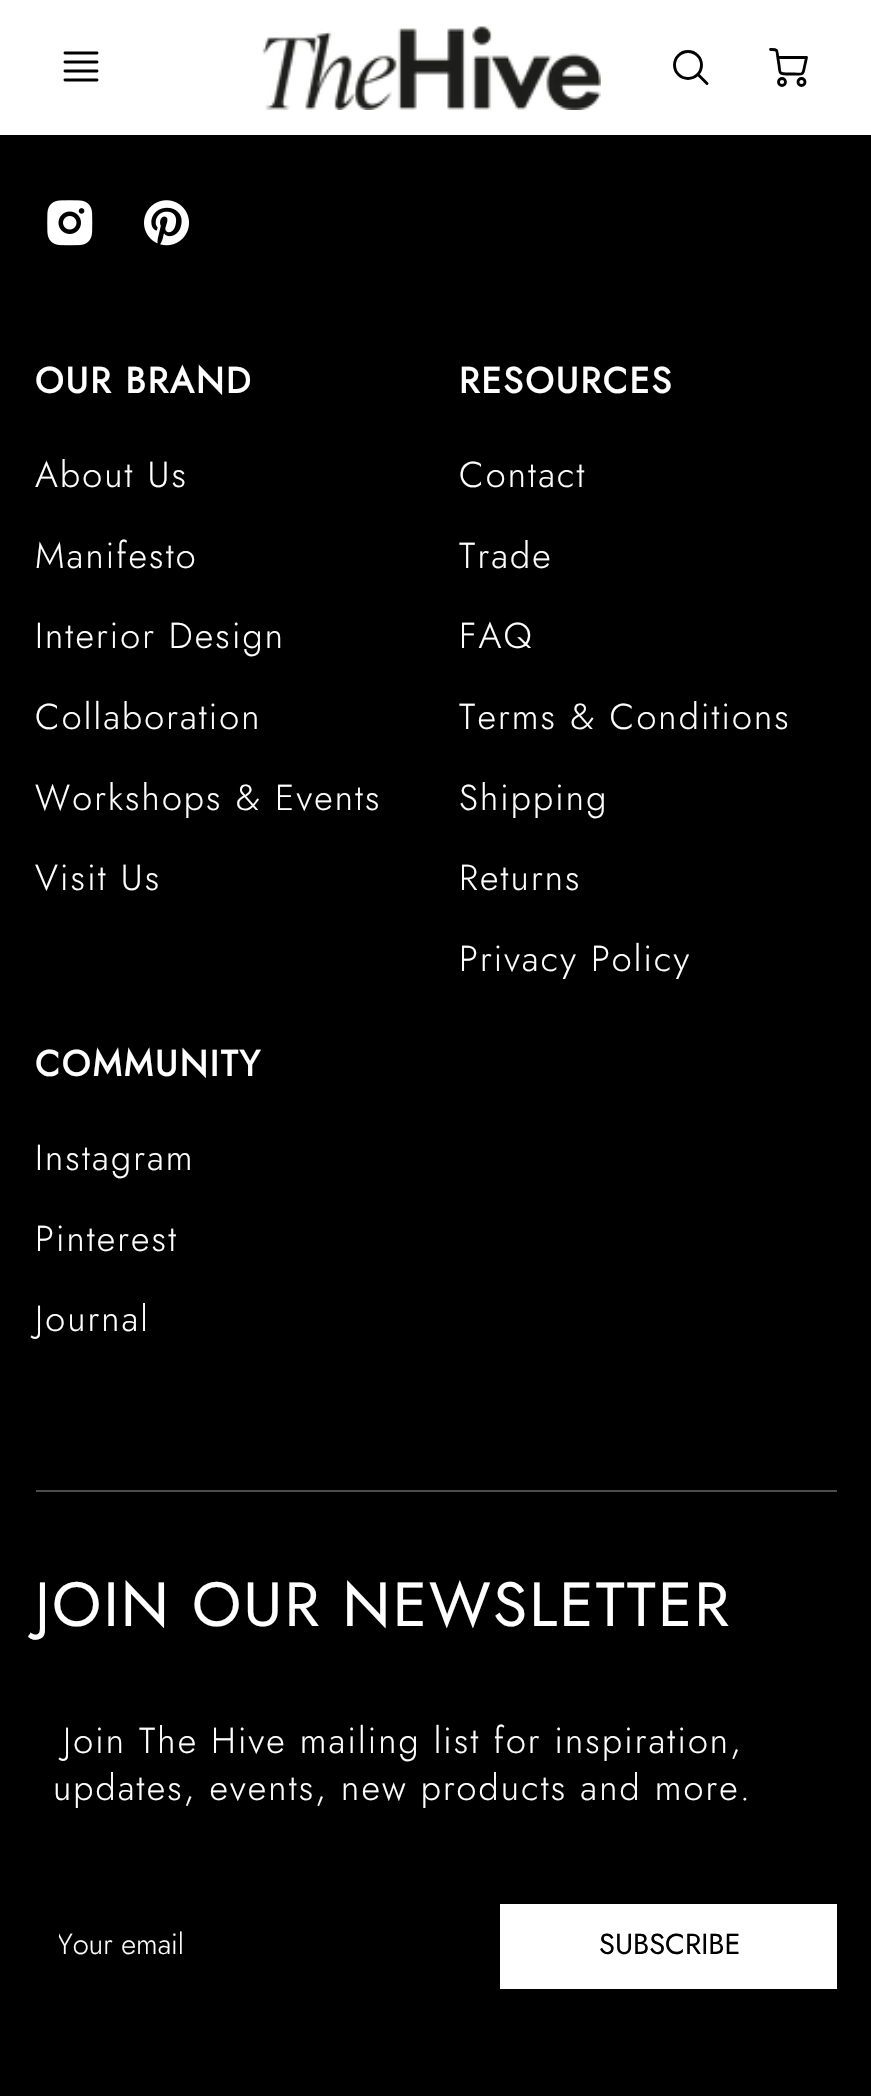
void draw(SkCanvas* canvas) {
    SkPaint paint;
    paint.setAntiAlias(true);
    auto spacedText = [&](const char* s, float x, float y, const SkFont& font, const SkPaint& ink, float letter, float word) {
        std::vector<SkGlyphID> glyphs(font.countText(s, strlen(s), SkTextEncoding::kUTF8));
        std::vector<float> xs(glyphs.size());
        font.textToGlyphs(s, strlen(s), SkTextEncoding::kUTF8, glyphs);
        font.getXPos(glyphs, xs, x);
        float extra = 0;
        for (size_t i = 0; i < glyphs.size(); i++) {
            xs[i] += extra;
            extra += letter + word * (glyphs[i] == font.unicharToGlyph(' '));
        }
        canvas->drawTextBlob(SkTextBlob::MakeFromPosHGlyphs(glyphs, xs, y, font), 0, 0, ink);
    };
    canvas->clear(0xFF000000);
    paint.setColor(0xFFFFFFFF);
    canvas->drawRect(SkRect::MakeXYWH(0, 0, 871, 135), paint);
    paint.setStyle(SkPaint::kStroke_Style);
    paint.setStrokeWidth(2.9f);
    paint.setStrokeCap(SkPaint::kRound_Cap);
    paint.setStrokeJoin(SkPaint::kRound_Join);
    paint.setColor(0xFF000000);
    canvas->drawPath(SkPathBuilder().moveTo(97, 71).lineTo(65, 71).moveTo(97, 80).lineTo(65, 80).moveTo(97, 53).lineTo(65, 53).moveTo(97, 62).lineTo(65, 62).detach(), paint);
    canvas->drawImageRect(SkImages::DeferredFromEncodedData(SkData::MakeFromFileName("img1.png")), SkRect::MakeXYWH(262, 26, 339, 84), SkSamplingOptions());
    paint.setStrokeCap(SkPaint::kButt_Cap);
    paint.setStrokeJoin(SkPaint::kMiter_Join);
    canvas->drawCircle(688, 65, 13.5f, paint);
    paint.setStrokeCap(SkPaint::kRound_Cap);
    paint.setStrokeJoin(SkPaint::kRound_Join);
    canvas->drawPath(SkPathBuilder().moveTo(707, 83.5f).lineTo(698, 74.5f).detach(), paint);
    paint.setStrokeWidth(2.8f);
    canvas->drawPath(SkPathBuilder().moveTo(778, 57.5f).lineTo(806.5f, 57.5f).lineTo(804, 69).cubicTo(803, 75.5f, 801, 74, 794.5f, 74).lineTo(786, 74).cubicTo(778.5f, 74, 780, 72, 779, 65).lineTo(777.5f, 55.5f).cubicTo(777, 49, 776.5f, 49.5f, 770.5f, 49.5f).detach(), paint);
    paint.setStrokeCap(SkPaint::kButt_Cap);
    paint.setStrokeJoin(SkPaint::kMiter_Join);
    canvas->drawCircle(782, 82, 3.5f, paint);
    canvas->drawCircle(801.5f, 82, 3.5f, paint);
    canvas->drawImageRect(SkImages::DeferredFromEncodedData(SkData::MakeFromFileName("img2.png")), SkRect::MakeXYWH(47, 200, 46, 46), SkSamplingOptions());
    canvas->drawImageRect(SkImages::DeferredFromEncodedData(SkData::MakeFromFileName("img3.png")), SkRect::MakeXYWH(144, 200, 45, 46), SkSamplingOptions());
    SkFont font1(fontMgr->matchFamilyStyle("Jost", SkFontStyle::Bold()), 36);
    font1.setSubpixel(true);
    paint.setStyle(SkPaint::kFill_Style);
    paint.setColor(0xFFFFFFFF);
    spacedText("OUR BRAND", 35, 393, font1, paint, 2.15f, 0);
    SkFont font2(fontMgr->matchFamilyStyle("Jost", SkFontStyle(300, SkFontStyle::kNormal_Width, SkFontStyle::kUpright_Slant)), 36);
    font2.setSubpixel(true);
    spacedText("About Us", 35, 487, font2, paint, 2.15f, 0);
    spacedText("Manifesto", 35, 568, font2, paint, 2.15f, 0);
    spacedText("Interior Design", 35, 648, font2, paint, 2.15f, 0);
    spacedText("Collaboration", 35, 729, font2, paint, 2.15f, 0);
    spacedText("Workshops & Events", 35, 810, font2, paint, 2.15f, 0);
    spacedText("Visit Us", 35, 890, font2, paint, 2.15f, 0);
    spacedText("RESOURCES", 459, 393, font1, paint, 2.15f, 0);
    spacedText("Contact", 459, 487, font2, paint, 2.15f, 0);
    spacedText("Trade", 459, 568, font2, paint, 2.15f, 0);
    spacedText("FAQ", 459, 648, font2, paint, 2.15f, 0);
    spacedText("Terms & Conditions", 459, 729, font2, paint, 2.15f, 0);
    spacedText("Shipping", 459, 810, font2, paint, 2.15f, 0);
    spacedText("Returns", 459, 890, font2, paint, 2.15f, 0);
    spacedText("Privacy Policy", 459, 971, font2, paint, 2.15f, 0);
    spacedText("COMMUNITY", 35, 1076, font1, paint, 2.15f, 0);
    spacedText("Instagram", 35, 1170, font2, paint, 2.15f, 0);
    spacedText("Pinterest", 35, 1251, font2, paint, 2.15f, 0);
    spacedText("Journal", 35, 1331, font2, paint, 2.15f, 0);
    paint.setColor(0xFF4D4D4D);
    canvas->drawRect(SkRect::MakeXYWH(36, 1490, 801, 2), paint);
    SkFont font3(fontMgr->matchFamilyStyle("Jost", SkFontStyle::Normal()), 62.25f);
    font3.setSubpixel(true);
    paint.setColor(0xFFFFFFFF);
    spacedText("JOIN OUR NEWSLETTER", 35, 1626, font3, paint, 2.15f, 0);
    spacedText("Join The Hive mailing list for inspiration,", 63, 1753, font2, paint, 2.15f, 0);
    spacedText("updates, events, new products and more.", 53, 1800, font2, paint, 2.15f, 0);
    canvas->save();
    canvas->clipRect(SkRect::MakeXYWH(59, 1924, 418, 43));
    SkFont font4(fontMgr->matchFamilyStyle("Jost", SkFontStyle(300, SkFontStyle::kNormal_Width, SkFontStyle::kUpright_Slant)), 29);
    font4.setSubpixel(true);
    canvas->drawString("Your email", 57, 1954, font4, paint);
    canvas->restore();
    canvas->drawRect(SkRect::MakeXYWH(500, 1904, 337, 85), paint);
    SkFont font5(fontMgr->matchFamilyStyle("Jost", SkFontStyle::Normal()), 29);
    font5.setSubpixel(true);
    paint.setColor(0xFF000000);
    canvas->drawString("SUBSCRIBE", 599, 1954, font5, paint);
}
